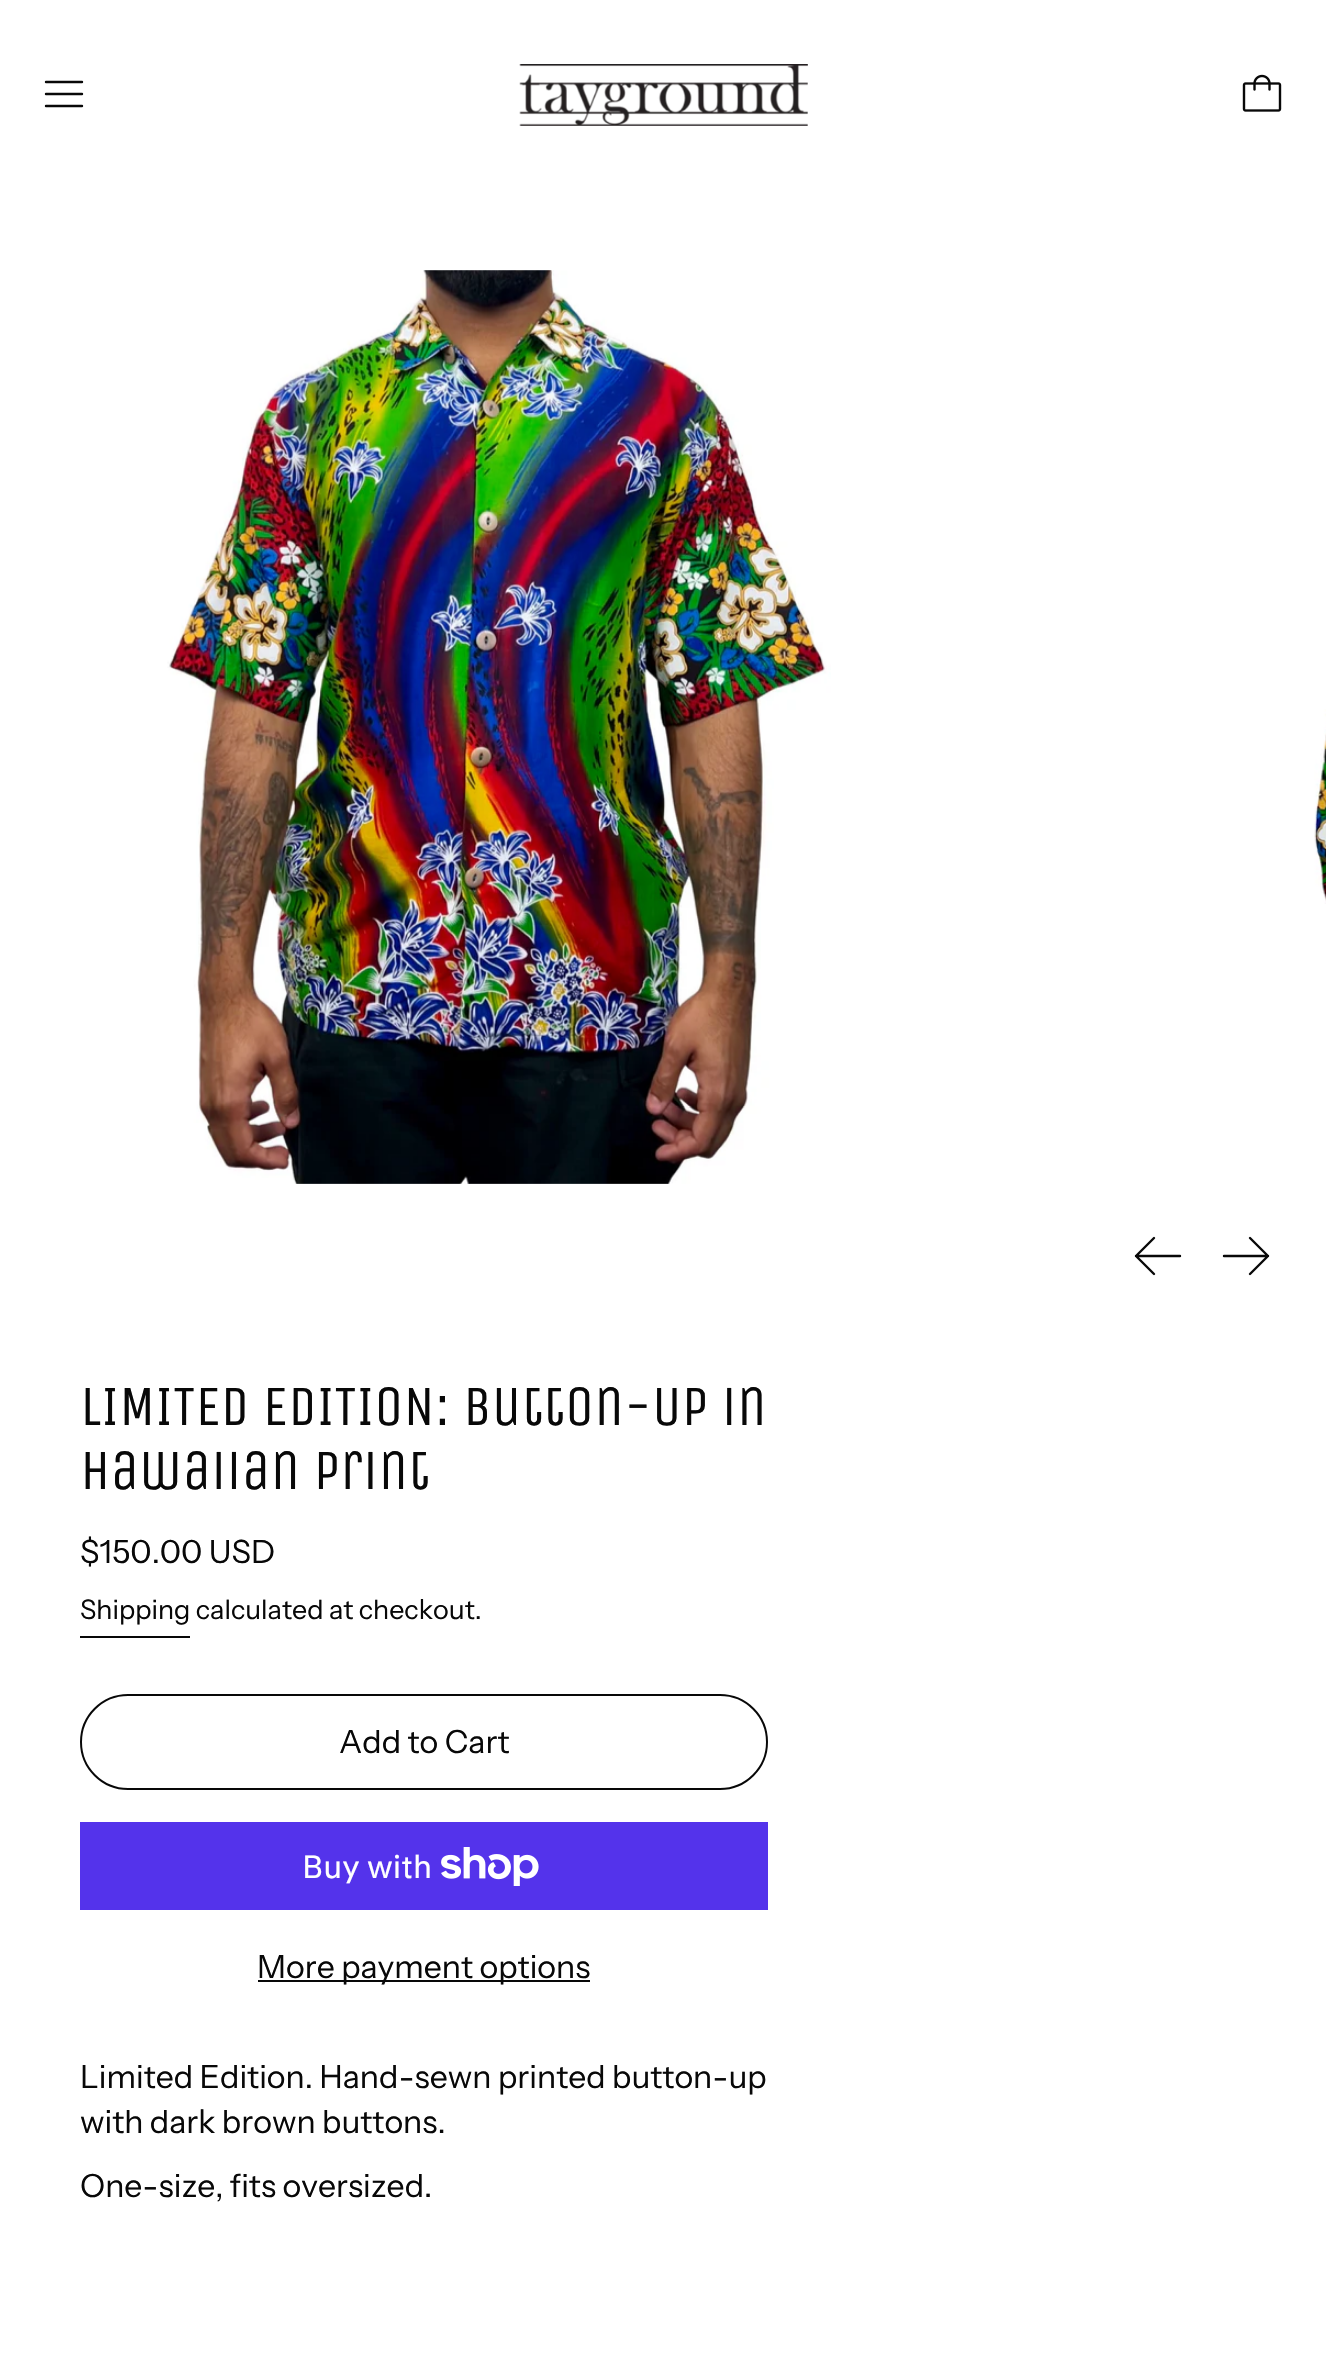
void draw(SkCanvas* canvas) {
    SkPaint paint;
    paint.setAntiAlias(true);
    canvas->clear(0xFFFFFFFF);
    paint.setStyle(SkPaint::kStroke_Style);
    paint.setStrokeWidth(2.4f);
    paint.setStrokeCap(SkPaint::kRound_Cap);
    paint.setStrokeJoin(SkPaint::kRound_Join);
    paint.setColor(0xFF080808);
    canvas->drawPath(SkPathBuilder().moveTo(46, 94).lineTo(82, 94).moveTo(46, 82).lineTo(82, 82).moveTo(46, 106).lineTo(82, 106).detach(), paint);
    canvas->drawImageRect(SkImages::DeferredFromEncodedData(SkData::MakeFromFileName("img1.png")), SkRect::MakeXYWH(519, 64, 289, 62), SkSamplingOptions());
    canvas->drawImageRect(SkImages::DeferredFromEncodedData(SkData::MakeFromFileName("img2.png")), SkRect::MakeXYWH(1242, 74, 40, 38), SkSamplingOptions());
    canvas->drawImageRect(SkImages::DeferredFromEncodedData(SkData::MakeFromFileName("img3.png")), SkRect::MakeXYWH(167, 270, 664, 914), SkSamplingOptions());
    canvas->drawImageRect(SkImages::DeferredFromEncodedData(SkData::MakeFromFileName("img4.png")), SkRect::MakeXYWH(1314, 709, 12, 195), SkSamplingOptions());
    canvas->drawPath(SkPathBuilder().moveTo(1180, 1256).lineTo(1136, 1256).moveTo(1154, 1238).lineTo(1136, 1256).lineTo(1154, 1274).detach(), paint);
    canvas->drawPath(SkPathBuilder().moveTo(1224, 1256).lineTo(1268, 1256).moveTo(1250, 1238).lineTo(1268, 1256).lineTo(1250, 1274).detach(), paint);
    SkFont font1(fontMgr->matchFamilyStyle("Unica One", SkFontStyle::Normal()), 57);
    font1.setSubpixel(true);
    paint.setStyle(SkPaint::kFill_Style);
    canvas->drawString("LIMITED EDITION: Button-Up in", 80, 1425, font1, paint);
    canvas->drawString("Hawaiian Print", 80, 1489, font1, paint);
    SkFont font2(fontMgr->matchFamilyStyle("Instrument Sans", SkFontStyle::Normal()), 32);
    font2.setSubpixel(true);
    canvas->drawString("$150.00 USD", 80, 1563, font2, paint);
    SkFont font3(fontMgr->matchFamilyStyle("Instrument Sans", SkFontStyle::Normal()), 26.9f);
    font3.setSubpixel(true);
    canvas->drawString("Shipping calculated at checkout.", 80, 1619, font3, paint);
    canvas->drawRect(SkRect::MakeXYWH(80, 1636, 110, 2), paint);
    paint.setStyle(SkPaint::kStroke_Style);
    paint.setStrokeWidth(2);
    paint.setStrokeCap(SkPaint::kButt_Cap);
    paint.setStrokeJoin(SkPaint::kMiter_Join);
    canvas->drawRoundRect(SkRect::MakeXYWH(81, 1695, 686, 94), 47, 47, paint);
    paint.setStyle(SkPaint::kFill_Style);
    canvas->drawString("Add to Cart", 339, 1753, font2, paint);
    paint.setColor(0xFF5433EB);
    canvas->drawRect(SkRect::MakeXYWH(80, 1822, 688, 88), paint);
    SkFont font4(fontMgr->matchFamilyStyle("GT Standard", SkFontStyle::Normal()), 32);
    font4.setSubpixel(true);
    paint.setColor(0xFFFFFFFF);
    canvas->drawString("Buy with", 302, 1878, font4, paint);
    canvas->drawImageRect(SkImages::DeferredFromEncodedData(SkData::MakeFromFileName("img5.png")), SkRect::MakeXYWH(441, 1847, 98, 39), SkSamplingOptions());
    paint.setColor(0xFF080808);
    canvas->drawRect(SkRect::MakeXYWH(258, 1980, 332, 2), paint);
    canvas->drawString("More payment options", 257, 1978, font2, paint);
    canvas->drawString("Limited Edition. Hand-sewn printed button-up", 80, 2088, font2, paint);
    canvas->drawString("with dark brown buttons.", 80, 2133, font2, paint);
    canvas->drawString("One-size, fits oversized.", 80, 2197, font2, paint);
}
